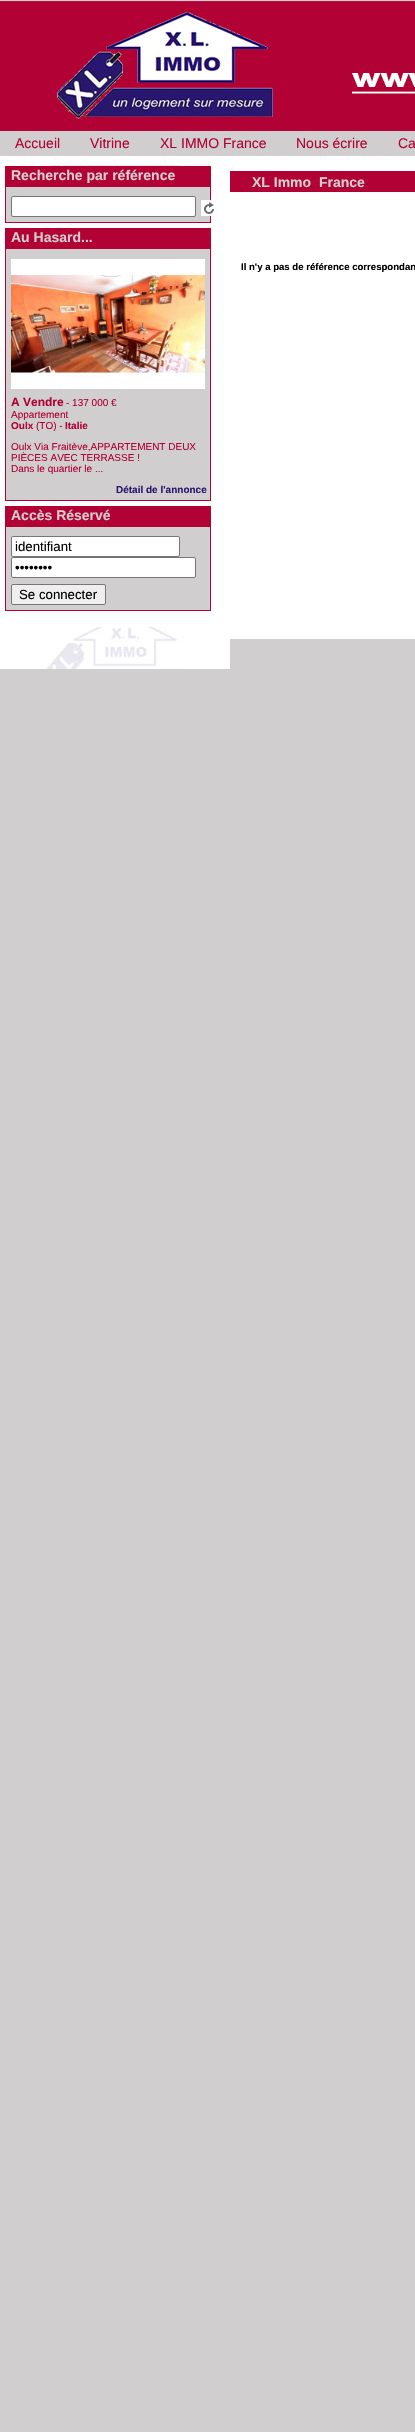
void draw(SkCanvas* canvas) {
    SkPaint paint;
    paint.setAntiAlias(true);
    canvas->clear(0xFFD0CECE);
    paint.setColor(0xFFFFFFFF);
    canvas->drawRect(SkRect::MakeXYWH(0, 165, 40, 504), paint);
    canvas->drawImageRect(SkImages::DeferredFromEncodedData(SkData::MakeFromFileName("img1.png")), SkRect::MakeXYWH(40, 165, 170, 504), SkSamplingOptions());
    canvas->drawImageRect(SkImages::DeferredFromEncodedData(SkData::MakeFromFileName("img2.png")), SkRect::MakeXYWH(0, 1, 415, 130), SkSamplingOptions());
    SkFont font1(fontMgr->matchFamilyStyle("Liberation Sans", SkFontStyle::Normal()), 14);
    font1.setSubpixel(true);
    paint.setColor(0xFFB10135);
    canvas->drawString("Accueil", 15, 148, font1, paint);
    canvas->drawString("Vitrine", 90, 148, font1, paint);
    canvas->drawString("XL IMMO France", 160, 148, font1, paint);
    canvas->drawString("Nous écrire", 296, 148, font1, paint);
    canvas->drawString("Ca", 398, 148, font1, paint);
    paint.setColor(0xFFFFFFFF);
    canvas->drawRect(SkRect::MakeXYWH(0, 156, 415, 9), paint);
    canvas->drawRect(SkRect::MakeXYWH(40, 223, 144, 404), paint);
    paint.setColor(0xFFD0CECE);
    canvas->drawRect(SkRect::MakeXYWH(6, 187, 204, 35), paint);
    paint.setColor(0xFFFFFFFF);
    canvas->drawRect(SkRect::MakeXYWH(210, 165, 205, 504), paint);
    paint.setStyle(SkPaint::kStroke_Style);
    paint.setStrokeWidth(1);
    paint.setColor(0xFFB10135);
    canvas->drawRect(SkRect::MakeXYWH(5.5f, 166.5f, 205, 56), paint);
    paint.setStyle(SkPaint::kFill_Style);
    canvas->drawRect(SkRect::MakeXYWH(6, 167, 204, 20), paint);
    SkFont font2(fontMgr->matchFamilyStyle("Liberation Sans", SkFontStyle::Bold()), 14);
    font2.setSubpixel(true);
    paint.setColor(0xFFD0CECE);
    canvas->drawString("Recherche par référence", 11, 180, font2, paint);
    paint.setColor(0xFFFFFFFF);
    canvas->drawRoundRect(SkRect::MakeXYWH(11.5f, 196.5f, 184, 20), 1.5f, 1.5f, paint);
    paint.setStyle(SkPaint::kStroke_Style);
    paint.setColor(0xFF767676);
    canvas->drawRoundRect(SkRect::MakeXYWH(11.5f, 196.5f, 184, 20), 1.5f, 1.5f, paint);
    canvas->drawImageRect(SkImages::DeferredFromEncodedData(SkData::MakeFromFileName("img3.png")), SkRect::MakeXYWH(201, 200, 13, 16), SkSamplingOptions());
    paint.setStyle(SkPaint::kFill_Style);
    paint.setColor(0xFFD0CECE);
    canvas->drawRect(SkRect::MakeXYWH(6, 249, 204, 251), paint);
    paint.setStyle(SkPaint::kStroke_Style);
    paint.setColor(0xFFB10135);
    canvas->drawRect(SkRect::MakeXYWH(5.5f, 228.5f, 205, 272), paint);
    paint.setStyle(SkPaint::kFill_Style);
    canvas->drawRect(SkRect::MakeXYWH(6, 229, 204, 20), paint);
    paint.setColor(0xFFD0CECE);
    canvas->drawString("Au Hasard...", 11, 242, font2, paint);
    canvas->drawImageRect(SkImages::DeferredFromEncodedData(SkData::MakeFromFileName("img4.png")), SkRect::MakeXYWH(11, 259, 194, 130), SkSamplingOptions());
    SkFont font3(fontMgr->matchFamilyStyle("Liberation Sans", SkFontStyle::Bold()), 12);
    font3.setSubpixel(true);
    paint.setColor(0xFFB10135);
    canvas->drawString("A Vendre", 11, 406, font3, paint);
    SkFont font4(fontMgr->matchFamilyStyle("Liberation Sans", SkFontStyle::Normal()), 10);
    font4.setSubpixel(true);
    canvas->drawString("- 137 000 €", 66, 406, font4, paint);
    canvas->drawString("Appartement", 11, 418, font4, paint);
    SkFont font5(fontMgr->matchFamilyStyle("Liberation Sans", SkFontStyle::Bold()), 10);
    font5.setSubpixel(true);
    canvas->drawString("Oulx", 11, 429, font5, paint);
    canvas->drawString("(TO) -", 36, 429, font4, paint);
    canvas->drawString("Italie", 65, 429, font5, paint);
    canvas->drawString("Oulx Via Fraitève,APPARTEMENT DEUX", 11, 450, font4, paint);
    canvas->drawString("PIÈCES AVEC TERRASSE !", 11, 461, font4, paint);
    canvas->drawString("Dans le quartier le ...", 11, 472, font4, paint);
    paint.setColor(0xFF29166F);
    canvas->drawString("Détail de l'annonce", 116, 493, font5, paint);
    paint.setColor(0xFFD0CECE);
    canvas->drawRect(SkRect::MakeXYWH(6, 527, 204, 83), paint);
    paint.setStyle(SkPaint::kStroke_Style);
    paint.setColor(0xFFB10135);
    canvas->drawRect(SkRect::MakeXYWH(5.5f, 506.5f, 205, 104), paint);
    paint.setStyle(SkPaint::kFill_Style);
    canvas->drawRect(SkRect::MakeXYWH(6, 507, 204, 20), paint);
    paint.setColor(0xFFD0CECE);
    canvas->drawString("Accès Réservé", 11, 520, font2, paint);
    paint.setColor(0xFFFFFFFF);
    canvas->drawRoundRect(SkRect::MakeXYWH(11.5f, 536.5f, 168, 20), 1.5f, 1.5f, paint);
    paint.setStyle(SkPaint::kStroke_Style);
    paint.setColor(0xFF767676);
    canvas->drawRoundRect(SkRect::MakeXYWH(11.5f, 536.5f, 168, 20), 1.5f, 1.5f, paint);
    SkFont font6(fontMgr->matchFamilyStyle("Liberation Sans", SkFontStyle::Normal()), 13.25f);
    font6.setSubpixel(true);
    paint.setStyle(SkPaint::kFill_Style);
    paint.setColor(0xFF000000);
    canvas->drawString("identifiant", 15, 551, font6, paint);
    paint.setColor(0xFFFFFFFF);
    canvas->drawRoundRect(SkRect::MakeXYWH(11.5f, 557.5f, 184, 20), 1.5f, 1.5f, paint);
    paint.setStyle(SkPaint::kStroke_Style);
    paint.setColor(0xFF767676);
    canvas->drawRoundRect(SkRect::MakeXYWH(11.5f, 557.5f, 184, 20), 1.5f, 1.5f, paint);
    paint.setStyle(SkPaint::kFill_Style);
    paint.setColor(0xFF000000);
    canvas->drawString("••••••••", 15, 572, font6, paint);
    paint.setColor(0xFFEFEFEF);
    canvas->drawRoundRect(SkRect::MakeXYWH(11.5f, 584.5f, 94, 20), 1.5f, 1.5f, paint);
    paint.setStyle(SkPaint::kStroke_Style);
    paint.setColor(0xFF767676);
    canvas->drawRoundRect(SkRect::MakeXYWH(11.5f, 584.5f, 94, 20), 1.5f, 1.5f, paint);
    paint.setStyle(SkPaint::kFill_Style);
    paint.setColor(0xFF000000);
    canvas->drawString("Se connecter", 19, 599, font6, paint);
    paint.setColor(0xFFB10135);
    canvas->drawRect(SkRect::MakeXYWH(230, 171, 185, 21), paint);
    paint.setColor(0xFFD0CECE);
    canvas->drawString("XL Immo  France", 252, 187, font2, paint);
    SkFont font7(fontMgr->matchFamilyStyle("Liberation Sans", SkFontStyle::Bold()), 9.6f);
    font7.setSubpixel(true);
    paint.setColor(0xFF000000);
    canvas->drawString("Il n'y a pas de référence correspondan", 241, 270, font7, paint);
    paint.setColor(0xFFD0CECE);
    canvas->drawRect(SkRect::MakeXYWH(230, 639, 185, 30), paint);
}
